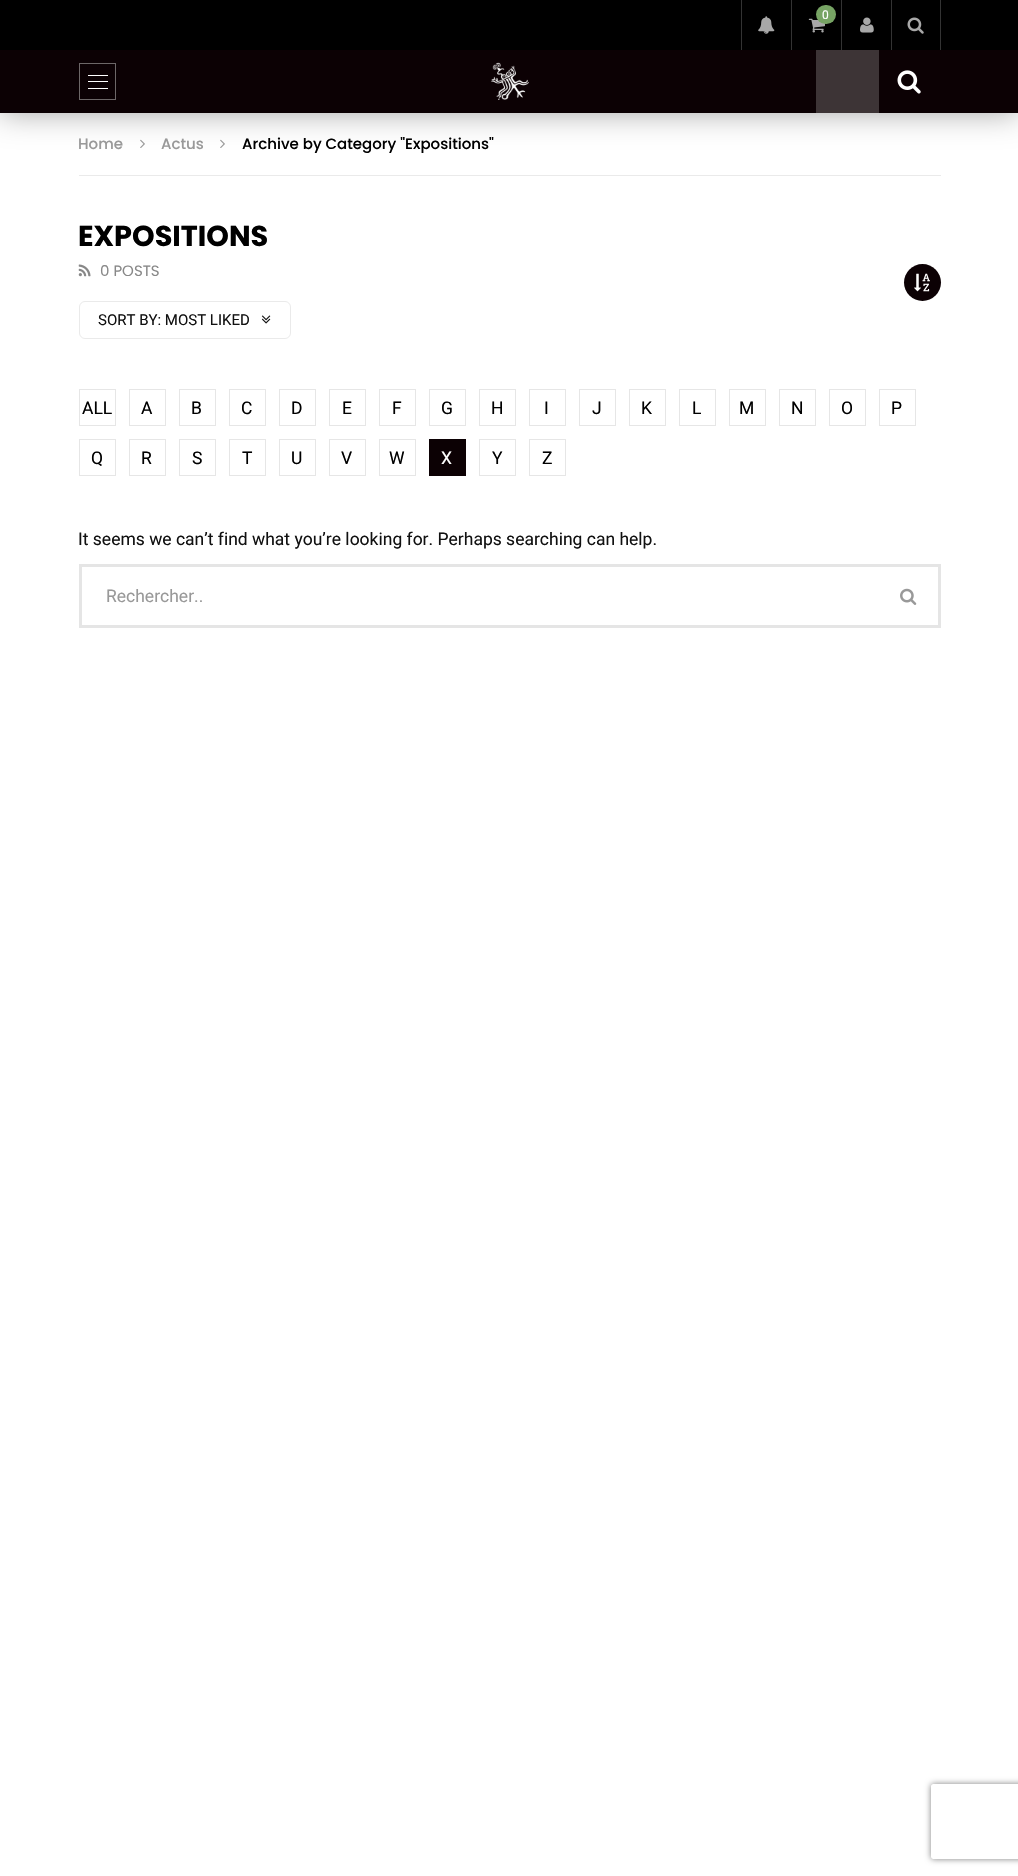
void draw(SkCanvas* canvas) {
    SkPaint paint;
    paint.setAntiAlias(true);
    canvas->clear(0xFFFFFFFF);
    paint.setColor(0xFF000000);
    canvas->drawRect(SkRect::MakeXYWH(0, 0, 1018, 50), paint);
    canvas->drawImageRect(SkImages::DeferredFromEncodedData(SkData::MakeFromFileName("img7.png")), SkRect::MakeXYWH(140, 139, 5, 9), SkSamplingOptions());
    canvas->drawImageRect(SkImages::DeferredFromEncodedData(SkData::MakeFromFileName("img7.png")), SkRect::MakeXYWH(220, 139, 5, 9), SkSamplingOptions());
    paint.setColor(0x59000000);
    paint.setMaskFilter(SkMaskFilter::MakeBlur(kNormal_SkBlurStyle, 15.5f));
    canvas->drawRect(SkRect::MakeXYWH(0, 50, 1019, 63), paint);
    paint.setMaskFilter(nullptr);
    paint.setColor(0xFF0C0104);
    canvas->drawRect(SkRect::MakeXYWH(0, 50, 1018, 63), paint);
    paint.setStyle(SkPaint::kStroke_Style);
    paint.setStrokeWidth(1);
    paint.setColor(0xFF6D6768);
    canvas->drawRect(SkRect::MakeXYWH(79.5f, 63.5f, 36, 36), paint);
    paint.setStyle(SkPaint::kFill_Style);
    paint.setColor(0xFFFFFFFF);
    canvas->drawRect(SkRect::MakeXYWH(88, 75, 20, 1), paint);
    canvas->drawRect(SkRect::MakeXYWH(88, 81, 20, 1), paint);
    canvas->drawRect(SkRect::MakeXYWH(88, 88, 20, 1), paint);
    canvas->drawImageRect(SkImages::DeferredFromEncodedData(SkData::MakeFromFileName("img1.png")), SkRect::MakeXYWH(491, 62, 38, 38), SkSamplingOptions());
    paint.setColor(0xFF3D3436);
    canvas->drawRect(SkRect::MakeXYWH(816, 50, 63, 63), paint);
    canvas->drawImageRect(SkImages::DeferredFromEncodedData(SkData::MakeFromFileName("img2.png")), SkRect::MakeXYWH(897, 70, 24, 24), SkSamplingOptions());
    paint.setColor(0xFF333333);
    canvas->drawRect(SkRect::MakeXYWH(741, 0, 1, 50), paint);
    canvas->drawImageRect(SkImages::DeferredFromEncodedData(SkData::MakeFromFileName("img3.png")), SkRect::MakeXYWH(758, 16, 17, 18), SkSamplingOptions());
    canvas->drawRect(SkRect::MakeXYWH(791, 0, 1, 50), paint);
    canvas->drawImageRect(SkImages::DeferredFromEncodedData(SkData::MakeFromFileName("img4.png")), SkRect::MakeXYWH(808, 18, 17, 15), SkSamplingOptions());
    paint.setColor(0xFF77A464);
    canvas->drawRoundRect(SkRect::MakeXYWH(816, 5, 20, 19), 9.5f, 9.5f, paint);
    SkFont font1(fontMgr->matchFamilyStyle("Roboto", SkFontStyle::Normal()), 12);
    font1.setSubpixel(true);
    paint.setColor(0xFFFFFFFF);
    canvas->drawString("0", 822, 19, font1, paint);
    paint.setColor(0xFF333333);
    canvas->drawRect(SkRect::MakeXYWH(841, 0, 1, 50), paint);
    canvas->drawImageRect(SkImages::DeferredFromEncodedData(SkData::MakeFromFileName("img5.png")), SkRect::MakeXYWH(860, 17, 14, 16), SkSamplingOptions());
    canvas->drawRect(SkRect::MakeXYWH(940, 0, 1, 50), paint);
    canvas->drawRect(SkRect::MakeXYWH(891, 0, 1, 50), paint);
    canvas->drawImageRect(SkImages::DeferredFromEncodedData(SkData::MakeFromFileName("img6.png")), SkRect::MakeXYWH(907, 17, 17, 17), SkSamplingOptions());
    paint.setColor(0xFFEAEAEA);
    canvas->drawRect(SkRect::MakeXYWH(79, 175, 862, 1), paint);
    SkFont font2(fontMgr->matchFamilyStyle("Poppins", SkFontStyle(500, SkFontStyle::kNormal_Width, SkFontStyle::kUpright_Slant)), 15);
    font2.setSubpixel(true);
    paint.setColor(0xFF999999);
    canvas->drawString("Home", 78, 149, font2, paint);
    canvas->drawString("Actus", 161, 149, font2, paint);
    paint.setColor(0xFF000000);
    canvas->drawString("Archive by Category \"Expositions\"", 242, 149, font2, paint);
    SkFont font3(fontMgr->matchFamilyStyle("Poppins", SkFontStyle::Bold()), 28.75f);
    font3.setSubpixel(true);
    canvas->drawString("EXPOSITIONS", 78, 246, font3, paint);
    canvas->drawImageRect(SkImages::DeferredFromEncodedData(SkData::MakeFromFileName("img8.png")), SkRect::MakeXYWH(78, 264, 13, 13), SkSamplingOptions());
    SkFont font4(fontMgr->matchFamilyStyle("Poppins", SkFontStyle::Normal()), 15);
    font4.setSubpixel(true);
    paint.setColor(0xFF888888);
    canvas->drawString("0 POSTS", 100, 276, font4, paint);
    paint.setStyle(SkPaint::kStroke_Style);
    paint.setColor(0xFFEAEAEA);
    canvas->drawRoundRect(SkRect::MakeXYWH(79.5f, 301.5f, 211, 37), 5.5f, 5.5f, paint);
    SkFont font5(fontMgr->matchFamilyStyle("Roboto", SkFontStyle::Normal()), 15);
    font5.setSubpixel(true);
    paint.setStyle(SkPaint::kFill_Style);
    paint.setColor(0xFF111111);
    canvas->drawString("SORT BY: MOST LIKED", 98, 325, font5, paint);
    canvas->drawImageRect(SkImages::DeferredFromEncodedData(SkData::MakeFromFileName("img9.png")), SkRect::MakeXYWH(261, 315, 10, 9), SkSamplingOptions());
    paint.setColor(0xFF0C0104);
    canvas->drawCircle(922.5f, 282.5f, 18.5f, paint);
    canvas->drawImageRect(SkImages::DeferredFromEncodedData(SkData::MakeFromFileName("img10.png")), SkRect::MakeXYWH(914, 273, 16, 19), SkSamplingOptions());
    paint.setStyle(SkPaint::kStroke_Style);
    paint.setColor(0xFFE6E6E6);
    canvas->drawRect(SkRect::MakeXYWH(79.5f, 389.5f, 36, 36), paint);
    SkFont font6(fontMgr->matchFamilyStyle("Roboto", SkFontStyle::Normal()), 17.5f);
    font6.setSubpixel(true);
    paint.setStyle(SkPaint::kFill_Style);
    paint.setColor(0xFF000000);
    canvas->drawString("ALL", 82, 414, font6, paint);
    paint.setStyle(SkPaint::kStroke_Style);
    paint.setColor(0xFFE6E6E6);
    canvas->drawRect(SkRect::MakeXYWH(129.5f, 389.5f, 36, 36), paint);
    paint.setStyle(SkPaint::kFill_Style);
    paint.setColor(0xFF000000);
    canvas->drawString("A", 141, 414, font6, paint);
    paint.setStyle(SkPaint::kStroke_Style);
    paint.setColor(0xFFE6E6E6);
    canvas->drawRect(SkRect::MakeXYWH(179.5f, 389.5f, 36, 36), paint);
    paint.setStyle(SkPaint::kFill_Style);
    paint.setColor(0xFF000000);
    canvas->drawString("B", 191, 414, font6, paint);
    paint.setStyle(SkPaint::kStroke_Style);
    paint.setColor(0xFFE6E6E6);
    canvas->drawRect(SkRect::MakeXYWH(229.5f, 389.5f, 36, 36), paint);
    paint.setStyle(SkPaint::kFill_Style);
    paint.setColor(0xFF000000);
    canvas->drawString("C", 241, 414, font6, paint);
    paint.setStyle(SkPaint::kStroke_Style);
    paint.setColor(0xFFE6E6E6);
    canvas->drawRect(SkRect::MakeXYWH(279.5f, 389.5f, 36, 36), paint);
    paint.setStyle(SkPaint::kFill_Style);
    paint.setColor(0xFF000000);
    canvas->drawString("D", 291, 414, font6, paint);
    paint.setStyle(SkPaint::kStroke_Style);
    paint.setColor(0xFFE6E6E6);
    canvas->drawRect(SkRect::MakeXYWH(329.5f, 389.5f, 36, 36), paint);
    paint.setStyle(SkPaint::kFill_Style);
    paint.setColor(0xFF000000);
    canvas->drawString("E", 342, 414, font6, paint);
    paint.setStyle(SkPaint::kStroke_Style);
    paint.setColor(0xFFE6E6E6);
    canvas->drawRect(SkRect::MakeXYWH(379.5f, 389.5f, 36, 36), paint);
    paint.setStyle(SkPaint::kFill_Style);
    paint.setColor(0xFF000000);
    canvas->drawString("F", 392, 414, font6, paint);
    paint.setStyle(SkPaint::kStroke_Style);
    paint.setColor(0xFFE6E6E6);
    canvas->drawRect(SkRect::MakeXYWH(429.5f, 389.5f, 36, 36), paint);
    paint.setStyle(SkPaint::kFill_Style);
    paint.setColor(0xFF000000);
    canvas->drawString("G", 441, 414, font6, paint);
    paint.setStyle(SkPaint::kStroke_Style);
    paint.setColor(0xFFE6E6E6);
    canvas->drawRect(SkRect::MakeXYWH(479.5f, 389.5f, 36, 36), paint);
    paint.setStyle(SkPaint::kFill_Style);
    paint.setColor(0xFF000000);
    canvas->drawString("H", 491, 414, font6, paint);
    paint.setStyle(SkPaint::kStroke_Style);
    paint.setColor(0xFFE6E6E6);
    canvas->drawRect(SkRect::MakeXYWH(529.5f, 389.5f, 36, 36), paint);
    paint.setStyle(SkPaint::kFill_Style);
    paint.setColor(0xFF000000);
    canvas->drawString("I", 544, 414, font6, paint);
    paint.setStyle(SkPaint::kStroke_Style);
    paint.setColor(0xFFE6E6E6);
    canvas->drawRect(SkRect::MakeXYWH(579.5f, 389.5f, 36, 36), paint);
    paint.setStyle(SkPaint::kFill_Style);
    paint.setColor(0xFF000000);
    canvas->drawString("J", 592, 414, font6, paint);
    paint.setStyle(SkPaint::kStroke_Style);
    paint.setColor(0xFFE6E6E6);
    canvas->drawRect(SkRect::MakeXYWH(629.5f, 389.5f, 36, 36), paint);
    paint.setStyle(SkPaint::kFill_Style);
    paint.setColor(0xFF000000);
    canvas->drawString("K", 641, 414, font6, paint);
    paint.setStyle(SkPaint::kStroke_Style);
    paint.setColor(0xFFE6E6E6);
    canvas->drawRect(SkRect::MakeXYWH(679.5f, 389.5f, 36, 36), paint);
    paint.setStyle(SkPaint::kFill_Style);
    paint.setColor(0xFF000000);
    canvas->drawString("L", 692, 414, font6, paint);
    paint.setStyle(SkPaint::kStroke_Style);
    paint.setColor(0xFFE6E6E6);
    canvas->drawRect(SkRect::MakeXYWH(729.5f, 389.5f, 36, 36), paint);
    paint.setStyle(SkPaint::kFill_Style);
    paint.setColor(0xFF000000);
    canvas->drawString("M", 739, 414, font6, paint);
    paint.setStyle(SkPaint::kStroke_Style);
    paint.setColor(0xFFE6E6E6);
    canvas->drawRect(SkRect::MakeXYWH(779.5f, 389.5f, 36, 36), paint);
    paint.setStyle(SkPaint::kFill_Style);
    paint.setColor(0xFF000000);
    canvas->drawString("N", 791, 414, font6, paint);
    paint.setStyle(SkPaint::kStroke_Style);
    paint.setColor(0xFFE6E6E6);
    canvas->drawRect(SkRect::MakeXYWH(829.5f, 389.5f, 36, 36), paint);
    paint.setStyle(SkPaint::kFill_Style);
    paint.setColor(0xFF000000);
    canvas->drawString("O", 841, 414, font6, paint);
    paint.setStyle(SkPaint::kStroke_Style);
    paint.setColor(0xFFE6E6E6);
    canvas->drawRect(SkRect::MakeXYWH(879.5f, 389.5f, 36, 36), paint);
    paint.setStyle(SkPaint::kFill_Style);
    paint.setColor(0xFF000000);
    canvas->drawString("P", 891, 414, font6, paint);
    paint.setStyle(SkPaint::kStroke_Style);
    paint.setColor(0xFFE6E6E6);
    canvas->drawRect(SkRect::MakeXYWH(79.5f, 439.5f, 36, 36), paint);
    paint.setStyle(SkPaint::kFill_Style);
    paint.setColor(0xFF000000);
    canvas->drawString("Q", 91, 464, font6, paint);
    paint.setStyle(SkPaint::kStroke_Style);
    paint.setColor(0xFFE6E6E6);
    canvas->drawRect(SkRect::MakeXYWH(129.5f, 439.5f, 36, 36), paint);
    paint.setStyle(SkPaint::kFill_Style);
    paint.setColor(0xFF000000);
    canvas->drawString("R", 141, 464, font6, paint);
    paint.setStyle(SkPaint::kStroke_Style);
    paint.setColor(0xFFE6E6E6);
    canvas->drawRect(SkRect::MakeXYWH(179.5f, 439.5f, 36, 36), paint);
    paint.setStyle(SkPaint::kFill_Style);
    paint.setColor(0xFF000000);
    canvas->drawString("S", 192, 464, font6, paint);
    paint.setStyle(SkPaint::kStroke_Style);
    paint.setColor(0xFFE6E6E6);
    canvas->drawRect(SkRect::MakeXYWH(229.5f, 439.5f, 36, 36), paint);
    paint.setStyle(SkPaint::kFill_Style);
    paint.setColor(0xFF000000);
    canvas->drawString("T", 242, 464, font6, paint);
    paint.setStyle(SkPaint::kStroke_Style);
    paint.setColor(0xFFE6E6E6);
    canvas->drawRect(SkRect::MakeXYWH(279.5f, 439.5f, 36, 36), paint);
    paint.setStyle(SkPaint::kFill_Style);
    paint.setColor(0xFF000000);
    canvas->drawString("U", 291, 464, font6, paint);
    paint.setStyle(SkPaint::kStroke_Style);
    paint.setColor(0xFFE6E6E6);
    canvas->drawRect(SkRect::MakeXYWH(329.5f, 439.5f, 36, 36), paint);
    paint.setStyle(SkPaint::kFill_Style);
    paint.setColor(0xFF000000);
    canvas->drawString("V", 341, 464, font6, paint);
    paint.setStyle(SkPaint::kStroke_Style);
    paint.setColor(0xFFE6E6E6);
    canvas->drawRect(SkRect::MakeXYWH(379.5f, 439.5f, 36, 36), paint);
    paint.setStyle(SkPaint::kFill_Style);
    paint.setColor(0xFF000000);
    canvas->drawString("W", 389, 464, font6, paint);
    paint.setColor(0xFF0C0104);
    canvas->drawRect(SkRect::MakeXYWH(429, 439, 37, 37), paint);
    paint.setColor(0xFFFFFFFF);
    canvas->drawString("X", 441, 464, font6, paint);
    paint.setStyle(SkPaint::kStroke_Style);
    paint.setColor(0xFFE6E6E6);
    canvas->drawRect(SkRect::MakeXYWH(479.5f, 439.5f, 36, 36), paint);
    paint.setStyle(SkPaint::kFill_Style);
    paint.setColor(0xFF000000);
    canvas->drawString("Y", 492, 464, font6, paint);
    paint.setStyle(SkPaint::kStroke_Style);
    paint.setColor(0xFFE6E6E6);
    canvas->drawRect(SkRect::MakeXYWH(529.5f, 439.5f, 36, 36), paint);
    paint.setStyle(SkPaint::kFill_Style);
    paint.setColor(0xFF000000);
    canvas->drawString("Z", 542, 464, font6, paint);
    paint.setColor(0xFF111111);
    canvas->drawString("It seems we can’t find what you’re looking for. Perhaps searching can help.", 78, 545, font6, paint);
    paint.setStyle(SkPaint::kStroke_Style);
    paint.setStrokeWidth(3);
    paint.setColor(0xFFE5E5E5);
    canvas->drawRect(SkRect::MakeXYWH(80.5f, 565.5f, 859, 61), paint);
    paint.setStyle(SkPaint::kFill_Style);
    paint.setColor(0xFF999999);
    canvas->drawString("Rechercher..", 106, 602, font6, paint);
    canvas->drawImageRect(SkImages::DeferredFromEncodedData(SkData::MakeFromFileName("img11.png")), SkRect::MakeXYWH(900, 588, 17, 17), SkSamplingOptions());
    canvas->save();
    canvas->clipPath(SkPathBuilder(SkPathFillType::kEvenOdd).moveTo(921, 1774).lineTo(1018, 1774).lineTo(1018, 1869).lineTo(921, 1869).close().moveTo(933.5f, 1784).lineTo(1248.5f, 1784).cubicTo(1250, 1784, 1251, 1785, 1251, 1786.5f).lineTo(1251, 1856.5f).cubicTo(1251, 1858, 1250, 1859, 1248.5f, 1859).lineTo(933.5f, 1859).cubicTo(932, 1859, 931, 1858, 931, 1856.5f).lineTo(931, 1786.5f).cubicTo(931, 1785, 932, 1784, 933.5f, 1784).close().detach(), true);
    paint.setColor(0xFF808080);
    paint.setMaskFilter(SkMaskFilter::MakeBlur(kNormal_SkBlurStyle, 3));
    canvas->drawRoundRect(SkRect::MakeXYWH(931, 1784, 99, 75), 2.5f, 2.5f, paint);
    paint.setMaskFilter(nullptr);
    canvas->restore();
}
